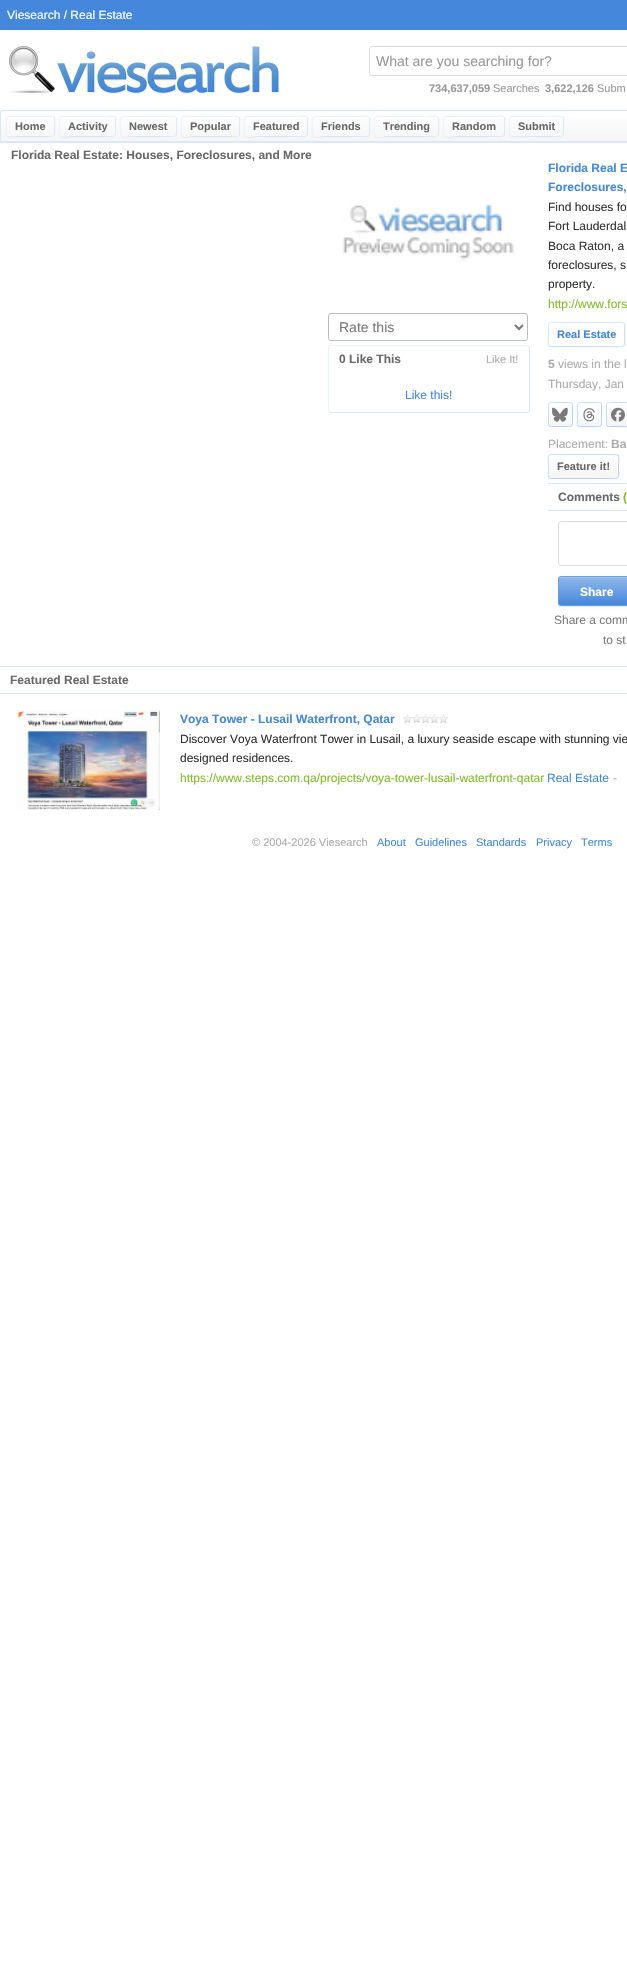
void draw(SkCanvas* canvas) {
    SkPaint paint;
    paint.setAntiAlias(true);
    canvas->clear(0xFFFFFFFF);
    paint.setColor(0xFF4487DB);
    canvas->drawRect(SkRect::MakeXYWH(0, 0, 627, 30), paint);
    SkFont font1(fontMgr->matchFamilyStyle("Liberation Sans", SkFontStyle::Normal()), 12);
    font1.setSubpixel(true);
    paint.setColor(0xFFFFFFFF);
    canvas->drawString("Viesearch / Real Estate", 7, 19, font1, paint);
    canvas->drawImageRect(SkImages::DeferredFromEncodedData(SkData::MakeFromFileName("img1.png")), SkRect::MakeXYWH(9, 46, 271, 48), SkSamplingOptions());
    paint.setStyle(SkPaint::kStroke_Style);
    paint.setStrokeWidth(1);
    paint.setColor(0xFFDEDEDE);
    canvas->drawRoundRect(SkRect::MakeXYWH(369.5f, 46.5f, 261, 29), 2.5f, 2.5f, paint);
    SkFont font2(fontMgr->matchFamilyStyle("Liberation Sans", SkFontStyle::Normal()), 14);
    font2.setSubpixel(true);
    paint.setStyle(SkPaint::kFill_Style);
    paint.setColor(0xFF999999);
    canvas->drawString("What are you searching for?", 376, 66, font2, paint);
    SkFont font3(fontMgr->matchFamilyStyle("Liberation Sans", SkFontStyle::Bold()), 11);
    font3.setSubpixel(true);
    canvas->drawString("734,637,059", 429, 92, font3, paint);
    SkFont font4(fontMgr->matchFamilyStyle("Liberation Sans", SkFontStyle::Normal()), 11);
    font4.setSubpixel(true);
    canvas->drawString("Searches", 493, 92, font4, paint);
    canvas->drawString("3,622,126", 545, 92, font3, paint);
    canvas->drawString("Subm", 597, 92, font4, paint);
    paint.setColor(0xFFDAE7F8);
    canvas->drawRect(SkRect::MakeXYWH(0, 141, 627, 1), paint);
    {
        const SkColor colors[] = {0xFFFFFFFF, 0xFFFFFFFF, 0xFFF5F5F5, 0xFFFFFFFF};
        const float stops[] = {0.01f, 0.02f, 0.98f, 1};
        const SkPoint ends[] = {{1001, 111}, {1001, 141}};
        paint.setShader(SkGradientShader::MakeLinear(ends, colors, stops, 4, SkTileMode::kClamp));
        paint.setAlpha(255);
    }
    canvas->drawRect(SkRect::MakeXYWH(0, 119, 627, 22), paint);
    paint.setShader(nullptr);
    paint.setColor(0xFFDAE7F8);
    canvas->drawPath(SkPathBuilder(SkPathFillType::kEvenOdd).moveTo(3, 110).lineTo(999, 110).cubicTo(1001, 110, 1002, 111, 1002, 113).lineTo(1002, 141).lineTo(0, 141).lineTo(0, 113).cubicTo(0, 111, 1, 110, 3, 110).close().moveTo(3, 111).lineTo(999, 111).cubicTo(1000, 111, 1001, 112, 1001, 113).lineTo(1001, 141).lineTo(1, 141).lineTo(1, 113).cubicTo(1, 112, 2, 111, 3, 111).close().detach(), paint);
    canvas->save();
    canvas->clipPath(SkPathBuilder().moveTo(9, 116).lineTo(52, 116).cubicTo(53.5f, 116, 55, 117.5f, 55, 119).lineTo(55, 134).cubicTo(55, 135.5f, 53.5f, 137, 52, 137).lineTo(9, 137).cubicTo(7.5f, 137, 6, 135.5f, 6, 134).lineTo(6, 119).cubicTo(6, 117.5f, 7.5f, 116, 9, 116).close().detach(), true);
    {
        const SkColor colors[] = {0xFFFFFFFF, 0xFFFFFFFF, 0xFFF5F5F5};
        const float stops[] = {0.01f, 0.02f, 1};
        const SkPoint ends[] = {{54, 98}, {54, 117}};
        paint.setShader(SkGradientShader::MakeLinear(ends, colors, stops, 3, SkTileMode::kClamp));
        paint.setAlpha(255);
    }
    canvas->drawRect(SkRect::MakeXYWH(6, 116, 49, 1), paint);
    {
        const SkColor colors[] = {0xFFFFFFFF, 0xFFFFFFFF, 0xFFF5F5F5};
        const float stops[] = {0.01f, 0.02f, 1};
        const SkPoint ends[] = {{54, 136}, {54, 155}};
        paint.setShader(SkGradientShader::MakeLinear(ends, colors, stops, 3, SkTileMode::kClamp));
        paint.setAlpha(255);
    }
    canvas->drawRect(SkRect::MakeXYWH(6, 136, 49, 1), paint);
    canvas->restore();
    paint.setStyle(SkPaint::kStroke_Style);
    paint.setShader(nullptr);
    paint.setColor(0xFFDAE7F8);
    canvas->drawPath(SkPathBuilder().moveTo(54, 117).cubicTo(55.5f, 119, 54.5f, 124.5f, 54.5f, 126.5f).cubicTo(54.5f, 137.5f, 56, 136.5f, 45, 136.5f).lineTo(16, 136.5f).cubicTo(13, 136.5f, 9.5f, 138, 7, 136).detach(), paint);
    paint.setColor(0xFFECF3FB);
    canvas->drawPath(SkPathBuilder().moveTo(7, 136).cubicTo(5.5f, 134, 6.5f, 128.5f, 6.5f, 126.5f).cubicTo(6.5f, 115.5f, 5, 116.5f, 16, 116.5f).lineTo(45, 116.5f).cubicTo(48, 116.5f, 51.5f, 115, 54, 117).detach(), paint);
    paint.setStyle(SkPaint::kFill_Style);
    paint.setColor(0xFF696969);
    canvas->drawString("Home", 15, 130, font3, paint);
    canvas->save();
    canvas->clipPath(SkPathBuilder().moveTo(62, 116).lineTo(113, 116).cubicTo(114.5f, 116, 116, 117.5f, 116, 119).lineTo(116, 134).cubicTo(116, 135.5f, 114.5f, 137, 113, 137).lineTo(62, 137).cubicTo(60.5f, 137, 59, 135.5f, 59, 134).lineTo(59, 119).cubicTo(59, 117.5f, 60.5f, 116, 62, 116).close().detach(), true);
    {
        const SkColor colors[] = {0xFFFFFFFF, 0xFFFFFFFF, 0xFFF5F5F5};
        const float stops[] = {0.01f, 0.02f, 1};
        const SkPoint ends[] = {{115, 98}, {115, 117}};
        paint.setShader(SkGradientShader::MakeLinear(ends, colors, stops, 3, SkTileMode::kClamp));
        paint.setAlpha(255);
    }
    canvas->drawRect(SkRect::MakeXYWH(59, 116, 57, 1), paint);
    {
        const SkColor colors[] = {0xFFFFFFFF, 0xFFFFFFFF, 0xFFF5F5F5};
        const float stops[] = {0.01f, 0.02f, 1};
        const SkPoint ends[] = {{115, 136}, {115, 155}};
        paint.setShader(SkGradientShader::MakeLinear(ends, colors, stops, 3, SkTileMode::kClamp));
        paint.setAlpha(255);
    }
    canvas->drawRect(SkRect::MakeXYWH(59, 136, 57, 1), paint);
    canvas->restore();
    paint.setStyle(SkPaint::kStroke_Style);
    paint.setShader(nullptr);
    paint.setColor(0xFFDAE7F8);
    canvas->drawPath(SkPathBuilder().moveTo(115, 117).cubicTo(116.5f, 119, 115.5f, 124.5f, 115.5f, 126.5f).cubicTo(115.5f, 138, 117, 136.5f, 104.5f, 136.5f).lineTo(70.5f, 136.5f).cubicTo(67, 136.5f, 62.5f, 138, 60, 136).detach(), paint);
    paint.setColor(0xFFECF3FB);
    canvas->drawPath(SkPathBuilder().moveTo(60, 136).cubicTo(58.5f, 134, 59.5f, 128.5f, 59.5f, 126.5f).cubicTo(59.5f, 115, 58, 116.5f, 70.5f, 116.5f).lineTo(104.5f, 116.5f).cubicTo(108, 116.5f, 112.5f, 115, 115, 117).detach(), paint);
    paint.setStyle(SkPaint::kFill_Style);
    paint.setColor(0xFF696969);
    canvas->drawString("Activity", 68, 130, font3, paint);
    canvas->save();
    canvas->clipPath(SkPathBuilder().moveTo(123, 116).lineTo(174, 116).cubicTo(175.5f, 116, 177, 117.5f, 177, 119).lineTo(177, 134).cubicTo(177, 135.5f, 175.5f, 137, 174, 137).lineTo(123, 137).cubicTo(121.5f, 137, 120, 135.5f, 120, 134).lineTo(120, 119).cubicTo(120, 117.5f, 121.5f, 116, 123, 116).close().detach(), true);
    {
        const SkColor colors[] = {0xFFFFFFFF, 0xFFFFFFFF, 0xFFF5F5F5};
        const float stops[] = {0.01f, 0.02f, 1};
        const SkPoint ends[] = {{176, 98}, {176, 117}};
        paint.setShader(SkGradientShader::MakeLinear(ends, colors, stops, 3, SkTileMode::kClamp));
        paint.setAlpha(255);
    }
    canvas->drawRect(SkRect::MakeXYWH(120, 116, 57, 1), paint);
    {
        const SkColor colors[] = {0xFFFFFFFF, 0xFFFFFFFF, 0xFFF5F5F5};
        const float stops[] = {0.01f, 0.02f, 1};
        const SkPoint ends[] = {{176, 136}, {176, 155}};
        paint.setShader(SkGradientShader::MakeLinear(ends, colors, stops, 3, SkTileMode::kClamp));
        paint.setAlpha(255);
    }
    canvas->drawRect(SkRect::MakeXYWH(120, 136, 57, 1), paint);
    canvas->restore();
    paint.setStyle(SkPaint::kStroke_Style);
    paint.setShader(nullptr);
    paint.setColor(0xFFDAE7F8);
    canvas->drawPath(SkPathBuilder().moveTo(176, 117).cubicTo(177.5f, 119, 176.5f, 124.5f, 176.5f, 126.5f).cubicTo(176.5f, 138, 178, 136.5f, 165.5f, 136.5f).lineTo(131.5f, 136.5f).cubicTo(128, 136.5f, 123.5f, 138, 121, 136).detach(), paint);
    paint.setColor(0xFFECF3FB);
    canvas->drawPath(SkPathBuilder().moveTo(121, 136).cubicTo(119.5f, 134, 120.5f, 128.5f, 120.5f, 126.5f).cubicTo(120.5f, 115, 119, 116.5f, 131.5f, 116.5f).lineTo(165.5f, 116.5f).cubicTo(169, 116.5f, 173.5f, 115, 176, 117).detach(), paint);
    paint.setStyle(SkPaint::kFill_Style);
    paint.setColor(0xFF696969);
    canvas->drawString("Newest", 129, 130, font3, paint);
    canvas->save();
    canvas->clipPath(SkPathBuilder().moveTo(184, 116).lineTo(237, 116).cubicTo(238.5f, 116, 240, 117.5f, 240, 119).lineTo(240, 134).cubicTo(240, 135.5f, 238.5f, 137, 237, 137).lineTo(184, 137).cubicTo(182.5f, 137, 181, 135.5f, 181, 134).lineTo(181, 119).cubicTo(181, 117.5f, 182.5f, 116, 184, 116).close().detach(), true);
    {
        const SkColor colors[] = {0xFFFFFFFF, 0xFFFFFFFF, 0xFFF5F5F5};
        const float stops[] = {0.01f, 0.02f, 1};
        const SkPoint ends[] = {{239, 98}, {239, 117}};
        paint.setShader(SkGradientShader::MakeLinear(ends, colors, stops, 3, SkTileMode::kClamp));
        paint.setAlpha(255);
    }
    canvas->drawRect(SkRect::MakeXYWH(181, 116, 59, 1), paint);
    {
        const SkColor colors[] = {0xFFFFFFFF, 0xFFFFFFFF, 0xFFF5F5F5};
        const float stops[] = {0.01f, 0.02f, 1};
        const SkPoint ends[] = {{239, 136}, {239, 155}};
        paint.setShader(SkGradientShader::MakeLinear(ends, colors, stops, 3, SkTileMode::kClamp));
        paint.setAlpha(255);
    }
    canvas->drawRect(SkRect::MakeXYWH(181, 136, 59, 1), paint);
    canvas->restore();
    paint.setStyle(SkPaint::kStroke_Style);
    paint.setShader(nullptr);
    paint.setColor(0xFFDAE7F8);
    canvas->drawPath(SkPathBuilder().moveTo(239, 117).cubicTo(240.5f, 119, 239.5f, 124.5f, 239.5f, 126.5f).cubicTo(239.5f, 138.5f, 241, 136.5f, 228, 136.5f).lineTo(193, 136.5f).cubicTo(189, 136.5f, 185, 138.5f, 182, 136).detach(), paint);
    paint.setColor(0xFFECF3FB);
    canvas->drawPath(SkPathBuilder().moveTo(182, 136).cubicTo(180.5f, 134, 181.5f, 128.5f, 181.5f, 126.5f).cubicTo(181.5f, 114.5f, 180, 116.5f, 193, 116.5f).lineTo(228, 116.5f).cubicTo(232, 116.5f, 236, 114.5f, 239, 117).detach(), paint);
    paint.setStyle(SkPaint::kFill_Style);
    paint.setColor(0xFF696969);
    canvas->drawString("Popular", 190, 130, font3, paint);
    canvas->save();
    canvas->clipPath(SkPathBuilder().moveTo(247, 116).lineTo(305, 116).cubicTo(306.5f, 116, 308, 117.5f, 308, 119).lineTo(308, 134).cubicTo(308, 135.5f, 306.5f, 137, 305, 137).lineTo(247, 137).cubicTo(245.5f, 137, 244, 135.5f, 244, 134).lineTo(244, 119).cubicTo(244, 117.5f, 245.5f, 116, 247, 116).close().detach(), true);
    {
        const SkColor colors[] = {0xFFFFFFFF, 0xFFFFFFFF, 0xFFF5F5F5};
        const float stops[] = {0.01f, 0.02f, 1};
        const SkPoint ends[] = {{307, 98}, {307, 117}};
        paint.setShader(SkGradientShader::MakeLinear(ends, colors, stops, 3, SkTileMode::kClamp));
        paint.setAlpha(255);
    }
    canvas->drawRect(SkRect::MakeXYWH(244, 116, 64, 1), paint);
    {
        const SkColor colors[] = {0xFFFFFFFF, 0xFFFFFFFF, 0xFFF5F5F5};
        const float stops[] = {0.01f, 0.02f, 1};
        const SkPoint ends[] = {{307, 136}, {307, 155}};
        paint.setShader(SkGradientShader::MakeLinear(ends, colors, stops, 3, SkTileMode::kClamp));
        paint.setAlpha(255);
    }
    canvas->drawRect(SkRect::MakeXYWH(244, 136, 64, 1), paint);
    canvas->restore();
    paint.setStyle(SkPaint::kStroke_Style);
    paint.setShader(nullptr);
    paint.setColor(0xFFDAE7F8);
    canvas->drawPath(SkPathBuilder().moveTo(307, 117).cubicTo(308.5f, 119, 307.5f, 124.5f, 307.5f, 126.5f).cubicTo(307.5f, 138.5f, 309, 136.5f, 295.5f, 136.5f).lineTo(256.5f, 136.5f).cubicTo(253, 136.5f, 248, 138.5f, 245, 136).detach(), paint);
    paint.setColor(0xFFECF3FB);
    canvas->drawPath(SkPathBuilder().moveTo(245, 136).cubicTo(243.5f, 134, 244.5f, 128.5f, 244.5f, 126.5f).cubicTo(244.5f, 114.5f, 243, 116.5f, 256.5f, 116.5f).lineTo(295.5f, 116.5f).cubicTo(299, 116.5f, 304, 114.5f, 307, 117).detach(), paint);
    paint.setStyle(SkPaint::kFill_Style);
    paint.setColor(0xFF696969);
    canvas->drawString("Featured", 253, 130, font3, paint);
    canvas->save();
    canvas->clipPath(SkPathBuilder().moveTo(315, 116).lineTo(367, 116).cubicTo(368.5f, 116, 370, 117.5f, 370, 119).lineTo(370, 134).cubicTo(370, 135.5f, 368.5f, 137, 367, 137).lineTo(315, 137).cubicTo(313.5f, 137, 312, 135.5f, 312, 134).lineTo(312, 119).cubicTo(312, 117.5f, 313.5f, 116, 315, 116).close().detach(), true);
    {
        const SkColor colors[] = {0xFFFFFFFF, 0xFFFFFFFF, 0xFFF5F5F5};
        const float stops[] = {0.01f, 0.02f, 1};
        const SkPoint ends[] = {{369, 98}, {369, 117}};
        paint.setShader(SkGradientShader::MakeLinear(ends, colors, stops, 3, SkTileMode::kClamp));
        paint.setAlpha(255);
    }
    canvas->drawRect(SkRect::MakeXYWH(312, 116, 58, 1), paint);
    {
        const SkColor colors[] = {0xFFFFFFFF, 0xFFFFFFFF, 0xFFF5F5F5};
        const float stops[] = {0.01f, 0.02f, 1};
        const SkPoint ends[] = {{369, 136}, {369, 155}};
        paint.setShader(SkGradientShader::MakeLinear(ends, colors, stops, 3, SkTileMode::kClamp));
        paint.setAlpha(255);
    }
    canvas->drawRect(SkRect::MakeXYWH(312, 136, 58, 1), paint);
    canvas->restore();
    paint.setStyle(SkPaint::kStroke_Style);
    paint.setShader(nullptr);
    paint.setColor(0xFFDAE7F8);
    canvas->drawPath(SkPathBuilder().moveTo(369, 117).cubicTo(370.5f, 119, 369.5f, 124.5f, 369.5f, 126.5f).cubicTo(369.5f, 138.5f, 371, 136.5f, 358.5f, 136.5f).lineTo(323.5f, 136.5f).cubicTo(320, 136.5f, 315.5f, 138.5f, 313, 136).detach(), paint);
    paint.setColor(0xFFECF3FB);
    canvas->drawPath(SkPathBuilder().moveTo(313, 136).cubicTo(311.5f, 134, 312.5f, 128.5f, 312.5f, 126.5f).cubicTo(312.5f, 114.5f, 311, 116.5f, 323.5f, 116.5f).lineTo(358.5f, 116.5f).cubicTo(362, 116.5f, 366.5f, 114.5f, 369, 117).detach(), paint);
    paint.setStyle(SkPaint::kFill_Style);
    paint.setColor(0xFF696969);
    canvas->drawString("Friends", 321, 130, font3, paint);
    canvas->save();
    canvas->clipPath(SkPathBuilder().moveTo(377, 116).lineTo(436, 116).cubicTo(437.5f, 116, 439, 117.5f, 439, 119).lineTo(439, 134).cubicTo(439, 135.5f, 437.5f, 137, 436, 137).lineTo(377, 137).cubicTo(375.5f, 137, 374, 135.5f, 374, 134).lineTo(374, 119).cubicTo(374, 117.5f, 375.5f, 116, 377, 116).close().detach(), true);
    {
        const SkColor colors[] = {0xFFFFFFFF, 0xFFFFFFFF, 0xFFF5F5F5};
        const float stops[] = {0.01f, 0.02f, 1};
        const SkPoint ends[] = {{438, 98}, {438, 117}};
        paint.setShader(SkGradientShader::MakeLinear(ends, colors, stops, 3, SkTileMode::kClamp));
        paint.setAlpha(255);
    }
    canvas->drawRect(SkRect::MakeXYWH(374, 116, 65, 1), paint);
    {
        const SkColor colors[] = {0xFFFFFFFF, 0xFFFFFFFF, 0xFFF5F5F5};
        const float stops[] = {0.01f, 0.02f, 1};
        const SkPoint ends[] = {{438, 136}, {438, 155}};
        paint.setShader(SkGradientShader::MakeLinear(ends, colors, stops, 3, SkTileMode::kClamp));
        paint.setAlpha(255);
    }
    canvas->drawRect(SkRect::MakeXYWH(374, 136, 65, 1), paint);
    canvas->restore();
    paint.setStyle(SkPaint::kStroke_Style);
    paint.setShader(nullptr);
    paint.setColor(0xFFDAE7F8);
    canvas->drawPath(SkPathBuilder().moveTo(438, 117).cubicTo(439.5f, 119, 438.5f, 124.5f, 438.5f, 126.5f).cubicTo(438.5f, 138.5f, 439.5f, 136.5f, 426, 136.5f).lineTo(387, 136.5f).cubicTo(383, 136.5f, 378, 138.5f, 375, 136).detach(), paint);
    paint.setColor(0xFFECF3FB);
    canvas->drawPath(SkPathBuilder().moveTo(375, 136).cubicTo(373.5f, 134, 374.5f, 128.5f, 374.5f, 126.5f).cubicTo(374.5f, 114.5f, 373.5f, 116.5f, 387, 116.5f).lineTo(426, 116.5f).cubicTo(430, 116.5f, 435, 114.5f, 438, 117).detach(), paint);
    paint.setStyle(SkPaint::kFill_Style);
    paint.setColor(0xFF696969);
    canvas->drawString("Trending", 383, 130, font3, paint);
    canvas->save();
    canvas->clipPath(SkPathBuilder().moveTo(446, 116).lineTo(502, 116).cubicTo(503.5f, 116, 505, 117.5f, 505, 119).lineTo(505, 134).cubicTo(505, 135.5f, 503.5f, 137, 502, 137).lineTo(446, 137).cubicTo(444.5f, 137, 443, 135.5f, 443, 134).lineTo(443, 119).cubicTo(443, 117.5f, 444.5f, 116, 446, 116).close().detach(), true);
    {
        const SkColor colors[] = {0xFFFFFFFF, 0xFFFFFFFF, 0xFFF5F5F5};
        const float stops[] = {0.01f, 0.02f, 1};
        const SkPoint ends[] = {{504, 98}, {504, 117}};
        paint.setShader(SkGradientShader::MakeLinear(ends, colors, stops, 3, SkTileMode::kClamp));
        paint.setAlpha(255);
    }
    canvas->drawRect(SkRect::MakeXYWH(443, 116, 62, 1), paint);
    {
        const SkColor colors[] = {0xFFFFFFFF, 0xFFFFFFFF, 0xFFF5F5F5};
        const float stops[] = {0.01f, 0.02f, 1};
        const SkPoint ends[] = {{504, 136}, {504, 155}};
        paint.setShader(SkGradientShader::MakeLinear(ends, colors, stops, 3, SkTileMode::kClamp));
        paint.setAlpha(255);
    }
    canvas->drawRect(SkRect::MakeXYWH(443, 136, 62, 1), paint);
    canvas->restore();
    paint.setStyle(SkPaint::kStroke_Style);
    paint.setShader(nullptr);
    paint.setColor(0xFFDAE7F8);
    canvas->drawPath(SkPathBuilder().moveTo(504, 117).cubicTo(505.5f, 119, 504.5f, 124.5f, 504.5f, 126.5f).cubicTo(504.5f, 138.5f, 506, 136.5f, 492.5f, 136.5f).lineTo(455.5f, 136.5f).cubicTo(451.5f, 136.5f, 447, 138.5f, 444, 136).detach(), paint);
    paint.setColor(0xFFECF3FB);
    canvas->drawPath(SkPathBuilder().moveTo(444, 136).cubicTo(442.5f, 134, 443.5f, 128.5f, 443.5f, 126.5f).cubicTo(443.5f, 114.5f, 442, 116.5f, 455.5f, 116.5f).lineTo(492.5f, 116.5f).cubicTo(496.5f, 116.5f, 501, 114.5f, 504, 117).detach(), paint);
    paint.setStyle(SkPaint::kFill_Style);
    paint.setColor(0xFF696969);
    canvas->drawString("Random", 452, 130, font3, paint);
    canvas->save();
    canvas->clipPath(SkPathBuilder().moveTo(512, 116).lineTo(561, 116).cubicTo(562.5f, 116, 564, 117.5f, 564, 119).lineTo(564, 134).cubicTo(564, 135.5f, 562.5f, 137, 561, 137).lineTo(512, 137).cubicTo(510.5f, 137, 509, 135.5f, 509, 134).lineTo(509, 119).cubicTo(509, 117.5f, 510.5f, 116, 512, 116).close().detach(), true);
    {
        const SkColor colors[] = {0xFFFFFFFF, 0xFFFFFFFF, 0xFFF5F5F5};
        const float stops[] = {0.01f, 0.02f, 1};
        const SkPoint ends[] = {{563, 98}, {563, 117}};
        paint.setShader(SkGradientShader::MakeLinear(ends, colors, stops, 3, SkTileMode::kClamp));
        paint.setAlpha(255);
    }
    canvas->drawRect(SkRect::MakeXYWH(509, 116, 55, 1), paint);
    {
        const SkColor colors[] = {0xFFFFFFFF, 0xFFFFFFFF, 0xFFF5F5F5};
        const float stops[] = {0.01f, 0.02f, 1};
        const SkPoint ends[] = {{563, 136}, {563, 155}};
        paint.setShader(SkGradientShader::MakeLinear(ends, colors, stops, 3, SkTileMode::kClamp));
        paint.setAlpha(255);
    }
    canvas->drawRect(SkRect::MakeXYWH(509, 136, 55, 1), paint);
    canvas->restore();
    paint.setStyle(SkPaint::kStroke_Style);
    paint.setShader(nullptr);
    paint.setColor(0xFFDAE7F8);
    canvas->drawPath(SkPathBuilder().moveTo(563, 117).cubicTo(564.5f, 119, 563.5f, 124.5f, 563.5f, 126.5f).cubicTo(563.5f, 138, 565, 136.5f, 553, 136.5f).lineTo(528.5f, 136.5f).cubicTo(525.5f, 136.5f, 512.5f, 137.5f, 510.5f, 136).lineTo(510, 136).detach(), paint);
    paint.setColor(0xFFECF3FB);
    canvas->drawPath(SkPathBuilder().moveTo(510, 136).cubicTo(508.5f, 134, 509.5f, 128.5f, 509.5f, 126.5f).cubicTo(509.5f, 115, 508, 116.5f, 520, 116.5f).lineTo(544.5f, 116.5f).cubicTo(547.5f, 116.5f, 560.5f, 115.5f, 562.5f, 117).lineTo(563, 117).detach(), paint);
    paint.setStyle(SkPaint::kFill_Style);
    paint.setColor(0xFF696969);
    canvas->drawString("Submit", 518, 130, font3, paint);
    paint.setColor(0xFFDAE7F8);
    canvas->drawRect(SkRect::MakeXYWH(1, 142, 626, 1), paint);
    canvas->drawCircle(0.5f, 142.5f, 0.5f, paint);
    SkFont font5(fontMgr->matchFamilyStyle("Liberation Sans", SkFontStyle::Bold()), 12);
    font5.setSubpixel(true);
    paint.setColor(0xFF696969);
    canvas->drawString("Florida Real Estate: Houses, Foreclosures, and More", 11, 159, font5, paint);
    canvas->drawImageRect(SkImages::DeferredFromEncodedData(SkData::MakeFromFileName("img2.png")), SkRect::MakeXYWH(342, 203, 173, 58), SkSamplingOptions());
    paint.setStyle(SkPaint::kStroke_Style);
    paint.setColor(0xFFBDBDBD);
    canvas->drawRoundRect(SkRect::MakeXYWH(328.5f, 313.5f, 199, 27), 2.5f, 2.5f, paint);
    paint.setStrokeWidth(2);
    paint.setColor(0xFF7A7A7A);
    canvas->drawPath(SkPathBuilder().moveTo(515, 325).lineTo(519, 329).lineTo(523, 325).detach(), paint);
    paint.setStyle(SkPaint::kFill_Style);
    canvas->drawString("Rate this", 339, 332, font2, paint);
    paint.setStyle(SkPaint::kStroke_Style);
    paint.setStrokeWidth(1);
    paint.setColor(0xFFDAE7F8);
    canvas->drawPath(SkPathBuilder().moveTo(529, 346).lineTo(529.5f, 348).lineTo(529.5f, 410).lineTo(529, 412).lineTo(527, 412.5f).lineTo(331, 412.5f).lineTo(329, 412).detach(), paint);
    paint.setColor(0xFFECF3FB);
    canvas->drawPath(SkPathBuilder().moveTo(329, 412).lineTo(328.5f, 410).lineTo(328.5f, 348).lineTo(329, 346).lineTo(331, 345.5f).lineTo(527, 345.5f).lineTo(529, 346).detach(), paint);
    paint.setStyle(SkPaint::kFill_Style);
    paint.setColor(0xFF696969);
    canvas->drawString("0 Like This", 339, 363, font5, paint);
    paint.setColor(0xFFACACAC);
    canvas->drawString("Like It!", 486, 363, font4, paint);
    paint.setColor(0xFF4487DB);
    canvas->drawString("Like this!", 405, 399, font1, paint);
    canvas->drawString("Florida Real E", 548, 172, font5, paint);
    canvas->drawString("Foreclosures,", 548, 191, font5, paint);
    paint.setColor(0xFF333333);
    canvas->drawString("Find houses fo", 548, 211, font1, paint);
    canvas->drawString("Fort Lauderdal", 548, 230, font1, paint);
    canvas->drawString("Boca Raton, a", 548, 250, font1, paint);
    canvas->drawString("foreclosures, s", 548, 269, font1, paint);
    canvas->drawString("property.", 548, 288, font1, paint);
    paint.setColor(0xFF84BB2E);
    canvas->drawString("http://www.fors", 548, 308, font1, paint);
    paint.setStyle(SkPaint::kStroke_Style);
    paint.setColor(0xFFC7DBF4);
    canvas->drawPath(SkPathBuilder().moveTo(624, 323).cubicTo(625.5f, 325, 624.5f, 332, 624.5f, 334.5f).cubicTo(624.5f, 349.5f, 626.5f, 346.5f, 610, 346.5f).lineTo(551, 346.5f).lineTo(549, 346).detach(), paint);
    paint.setColor(0xFFDAE7F8);
    canvas->drawPath(SkPathBuilder().moveTo(549, 346).cubicTo(547.5f, 344, 548.5f, 337, 548.5f, 334.5f).cubicTo(548.5f, 319.5f, 546.5f, 322.5f, 563, 322.5f).lineTo(622, 322.5f).lineTo(624, 323).detach(), paint);
    paint.setStyle(SkPaint::kFill_Style);
    paint.setColor(0xFF4487DB);
    canvas->drawString("Real Estate", 557, 338, font3, paint);
    paint.setColor(0xFFACACAC);
    canvas->drawString("5", 548, 368, font5, paint);
    canvas->drawString("views in the l", 558, 368, font1, paint);
    canvas->drawString("Thursday, Jan", 548, 388, font1, paint);
    canvas->save();
    canvas->clipPath(SkPathBuilder().moveTo(551, 402).lineTo(570, 402).cubicTo(571.5f, 402, 573, 403.5f, 573, 405).lineTo(573, 424).cubicTo(573, 425.5f, 571.5f, 427, 570, 427).lineTo(551, 427).cubicTo(549.5f, 427, 548, 425.5f, 548, 424).lineTo(548, 405).cubicTo(548, 403.5f, 549.5f, 402, 551, 402).close().detach(), true);
    {
        const SkColor colors[] = {0xFFFFFFFF, 0xFFFFFFFF, 0xFFF5F5F5};
        const float stops[] = {0.01f, 0.02f, 1};
        const SkPoint ends[] = {{572, 403}, {572, 426}};
        paint.setShader(SkGradientShader::MakeLinear(ends, colors, stops, 3, SkTileMode::kClamp));
        paint.setAlpha(255);
    }
    canvas->drawRect(SkRect::MakeXYWH(548, 403, 25, 23), paint);
    canvas->restore();
    paint.setStyle(SkPaint::kStroke_Style);
    paint.setShader(nullptr);
    paint.setColor(0xFFB4CFF1);
    canvas->drawPath(SkPathBuilder().moveTo(572, 403).cubicTo(573, 404.5f, 572.5f, 407, 572.5f, 408).lineTo(572.5f, 414.5f).cubicTo(572.5f, 428.5f, 574.5f, 426.5f, 560.5f, 426.5f).lineTo(554, 426.5f).cubicTo(553, 426.5f, 550.5f, 427, 549, 426).detach(), paint);
    paint.setColor(0xFFC7DBF4);
    canvas->drawPath(SkPathBuilder().moveTo(549, 426).cubicTo(548, 424.5f, 548.5f, 422, 548.5f, 421).lineTo(548.5f, 414.5f).cubicTo(548.5f, 400.5f, 546.5f, 402.5f, 560.5f, 402.5f).lineTo(567, 402.5f).cubicTo(568, 402.5f, 570.5f, 402, 572, 403).detach(), paint);
    canvas->drawImageRect(SkImages::DeferredFromEncodedData(SkData::MakeFromFileName("img3.png")), SkRect::MakeXYWH(551, 407, 17, 15), SkSamplingOptions());
    canvas->save();
    canvas->clipPath(SkPathBuilder().moveTo(580, 402).lineTo(599, 402).cubicTo(600.5f, 402, 602, 403.5f, 602, 405).lineTo(602, 424).cubicTo(602, 425.5f, 600.5f, 427, 599, 427).lineTo(580, 427).cubicTo(578.5f, 427, 577, 425.5f, 577, 424).lineTo(577, 405).cubicTo(577, 403.5f, 578.5f, 402, 580, 402).close().detach(), true);
    paint.setStyle(SkPaint::kFill_Style);
    {
        const SkColor colors[] = {0xFFFFFFFF, 0xFFFFFFFF, 0xFFF5F5F5};
        const float stops[] = {0.01f, 0.02f, 1};
        const SkPoint ends[] = {{601, 403}, {601, 426}};
        paint.setShader(SkGradientShader::MakeLinear(ends, colors, stops, 3, SkTileMode::kClamp));
        paint.setAlpha(255);
    }
    canvas->drawRect(SkRect::MakeXYWH(577, 403, 25, 23), paint);
    canvas->restore();
    paint.setStyle(SkPaint::kStroke_Style);
    paint.setShader(nullptr);
    paint.setColor(0xFFB4CFF1);
    canvas->drawPath(SkPathBuilder().moveTo(601, 403).cubicTo(602, 404.5f, 601.5f, 407, 601.5f, 408).lineTo(601.5f, 414.5f).cubicTo(601.5f, 428.5f, 603.5f, 426.5f, 589.5f, 426.5f).lineTo(583, 426.5f).cubicTo(582, 426.5f, 579.5f, 427, 578, 426).detach(), paint);
    paint.setColor(0xFFC7DBF4);
    canvas->drawPath(SkPathBuilder().moveTo(578, 426).cubicTo(577, 424.5f, 577.5f, 422, 577.5f, 421).lineTo(577.5f, 414.5f).cubicTo(577.5f, 400.5f, 575.5f, 402.5f, 589.5f, 402.5f).lineTo(596, 402.5f).cubicTo(597, 402.5f, 599.5f, 402, 601, 403).detach(), paint);
    canvas->drawImageRect(SkImages::DeferredFromEncodedData(SkData::MakeFromFileName("img4.png")), SkRect::MakeXYWH(583, 408, 12, 14), SkSamplingOptions());
    canvas->save();
    canvas->clipPath(SkPathBuilder().moveTo(609, 402).lineTo(628, 402).cubicTo(629.5f, 402, 631, 403.5f, 631, 405).lineTo(631, 424).cubicTo(631, 425.5f, 629.5f, 427, 628, 427).lineTo(609, 427).cubicTo(607.5f, 427, 606, 425.5f, 606, 424).lineTo(606, 405).cubicTo(606, 403.5f, 607.5f, 402, 609, 402).close().detach(), true);
    paint.setStyle(SkPaint::kFill_Style);
    {
        const SkColor colors[] = {0xFFFFFFFF, 0xFFFFFFFF, 0xFFF5F5F5};
        const float stops[] = {0.01f, 0.02f, 1};
        const SkPoint ends[] = {{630, 403}, {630, 426}};
        paint.setShader(SkGradientShader::MakeLinear(ends, colors, stops, 3, SkTileMode::kClamp));
        paint.setAlpha(255);
    }
    canvas->drawRect(SkRect::MakeXYWH(606, 403, 21, 23), paint);
    canvas->restore();
    paint.setStyle(SkPaint::kStroke_Style);
    paint.setShader(nullptr);
    paint.setColor(0xFFB4CFF1);
    canvas->drawPath(SkPathBuilder().moveTo(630, 403).cubicTo(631, 404.5f, 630.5f, 407, 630.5f, 408).lineTo(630.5f, 414.5f).cubicTo(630.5f, 428.5f, 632.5f, 426.5f, 618.5f, 426.5f).lineTo(612, 426.5f).cubicTo(611, 426.5f, 608.5f, 427, 607, 426).detach(), paint);
    paint.setColor(0xFFC7DBF4);
    canvas->drawPath(SkPathBuilder().moveTo(607, 426).cubicTo(606, 424.5f, 606.5f, 422, 606.5f, 421).lineTo(606.5f, 414.5f).cubicTo(606.5f, 400.5f, 604.5f, 402.5f, 618.5f, 402.5f).lineTo(625, 402.5f).cubicTo(626, 402.5f, 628.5f, 402, 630, 403).detach(), paint);
    canvas->drawImageRect(SkImages::DeferredFromEncodedData(SkData::MakeFromFileName("img5.png")), SkRect::MakeXYWH(611, 407, 14, 15), SkSamplingOptions());
    paint.setStyle(SkPaint::kFill_Style);
    paint.setColor(0xFFACACAC);
    canvas->drawString("Placement:", 548, 448, font1, paint);
    canvas->drawString("Ba", 611, 448, font5, paint);
    canvas->save();
    canvas->clipPath(SkPathBuilder().moveTo(551, 454).lineTo(616, 454).cubicTo(617.5f, 454, 619, 455.5f, 619, 457).lineTo(619, 476).cubicTo(619, 477.5f, 617.5f, 479, 616, 479).lineTo(551, 479).cubicTo(549.5f, 479, 548, 477.5f, 548, 476).lineTo(548, 457).cubicTo(548, 455.5f, 549.5f, 454, 551, 454).close().detach(), true);
    {
        const SkColor colors[] = {0xFFFFFFFF, 0xFFFFFFFF, 0xFFF5F5F5};
        const float stops[] = {0.01f, 0.02f, 1};
        const SkPoint ends[] = {{618, 455}, {618, 478}};
        paint.setShader(SkGradientShader::MakeLinear(ends, colors, stops, 3, SkTileMode::kClamp));
        paint.setAlpha(255);
    }
    canvas->drawRect(SkRect::MakeXYWH(548, 455, 71, 23), paint);
    canvas->restore();
    paint.setStyle(SkPaint::kStroke_Style);
    paint.setShader(nullptr);
    paint.setColor(0xFFB4CFF1);
    canvas->drawPath(SkPathBuilder().moveTo(618, 455).cubicTo(619.5f, 457, 618.5f, 461, 618.5f, 463.5f).cubicTo(618.5f, 480.5f, 622, 478.5f, 605, 478.5f).lineTo(551, 478.5f).lineTo(549, 478).detach(), paint);
    paint.setColor(0xFFC7DBF4);
    canvas->drawPath(SkPathBuilder().moveTo(549, 478).cubicTo(547.5f, 476, 548.5f, 472, 548.5f, 469.5f).cubicTo(548.5f, 452.5f, 545, 454.5f, 562, 454.5f).lineTo(616, 454.5f).lineTo(618, 455).detach(), paint);
    paint.setStyle(SkPaint::kFill_Style);
    paint.setColor(0xFF696969);
    canvas->drawString("Feature it!", 557, 470, font3, paint);
    paint.setColor(0xFFDAE7F8);
    canvas->drawRect(SkRect::MakeXYWH(548, 483, 79, 1), paint);
    canvas->drawRect(SkRect::MakeXYWH(548, 510, 79, 1), paint);
    paint.setColor(0xFF696969);
    canvas->drawString("Comments", 558, 501, font5, paint);
    paint.setColor(0xFF84BB2E);
    canvas->drawString("(", 623, 501, font5, paint);
    paint.setStyle(SkPaint::kStroke_Style);
    paint.setColor(0xFFDEDEDE);
    canvas->drawRoundRect(SkRect::MakeXYWH(558.5f, 521.5f, 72, 44), 2.5f, 2.5f, paint);
    paint.setStyle(SkPaint::kFill_Style);
    paint.setColor(0x1A000000);
    paint.setMaskFilter(SkMaskFilter::MakeBlur(kNormal_SkBlurStyle, 1));
    canvas->drawRoundRect(SkRect::MakeXYWH(558, 577, 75, 30), 3, 3, paint);
    paint.setMaskFilter(nullptr);
    canvas->save();
    canvas->clipPath(SkPathBuilder().moveTo(561, 576).lineTo(633, 576).cubicTo(634.5f, 576, 636, 577.5f, 636, 579).lineTo(636, 603).cubicTo(636, 604.5f, 634.5f, 606, 633, 606).lineTo(561, 606).cubicTo(559.5f, 606, 558, 604.5f, 558, 603).lineTo(558, 579).cubicTo(558, 577.5f, 559.5f, 576, 561, 576).close().detach(), true);
    {
        const SkColor colors[] = {0xFFECF3FB, 0xFF8FB7E9, 0xFF4487DB};
        const float stops[] = {0.01f, 0.02f, 1};
        const SkPoint ends[] = {{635, 577}, {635, 605}};
        paint.setShader(SkGradientShader::MakeLinear(ends, colors, stops, 3, SkTileMode::kClamp));
        paint.setAlpha(255);
    }
    canvas->drawRect(SkRect::MakeXYWH(558, 577, 69, 28), paint);
    canvas->restore();
    paint.setStyle(SkPaint::kStroke_Style);
    paint.setShader(nullptr);
    paint.setColor(0xFF699FE2);
    canvas->drawRoundRect(SkRect::MakeXYWH(558.5f, 576.5f, 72, 29), 2.5f, 2.5f, paint);
    paint.setStyle(SkPaint::kFill_Style);
    paint.setColor(0xFFFFFFFF);
    canvas->drawString("Share", 580, 596, font5, paint);
    paint.setColor(0xFF7A7A7A);
    canvas->drawString("Share a comm", 554, 624, font1, paint);
    canvas->drawString("to st", 603, 644, font1, paint);
    paint.setColor(0xFFDAE7F8);
    canvas->drawRect(SkRect::MakeXYWH(0, 666, 627, 1), paint);
    canvas->drawRect(SkRect::MakeXYWH(0, 693, 627, 1), paint);
    paint.setColor(0xFF696969);
    canvas->drawString("Featured Real Estate", 10, 684, font5, paint);
    canvas->drawImageRect(SkImages::DeferredFromEncodedData(SkData::MakeFromFileName("img6.png")), SkRect::MakeXYWH(16, 710, 144, 100), SkSamplingOptions());
    paint.setColor(0xFF4487DB);
    canvas->drawString("Voya Tower - Lusail Waterfront, Qatar", 180, 723, font5, paint);
    canvas->drawImageRect(SkImages::DeferredFromEncodedData(SkData::MakeFromFileName("img7.png")), SkRect::MakeXYWH(403, 714, 45, 9), SkSamplingOptions());
    paint.setColor(0xFF333333);
    canvas->drawString("Discover Voya Waterfront Tower in Lusail, a luxury seaside escape with stunning vie", 180, 743, font1, paint);
    canvas->drawString("designed residences.", 180, 762, font1, paint);
    paint.setColor(0xFF84BB2E);
    canvas->drawString("https://www.steps.com.qa/projects/voya-tower-lusail-waterfront-qatar", 180, 782, font1, paint);
    paint.setColor(0xFF4487DB);
    canvas->drawString("Real Estate", 547, 782, font1, paint);
    paint.setColor(0xFFACACAC);
    canvas->drawString("-", 613, 782, font1, paint);
    canvas->drawString("© 2004-2026 Viesearch", 252, 846, font4, paint);
    paint.setColor(0xFF4487DB);
    canvas->drawString("About", 377, 846, font4, paint);
    canvas->drawString("Guidelines", 415, 846, font4, paint);
    canvas->drawString("Standards", 476, 846, font4, paint);
    canvas->drawString("Privacy", 536, 846, font4, paint);
    canvas->drawString("Terms", 581, 846, font4, paint);
}
